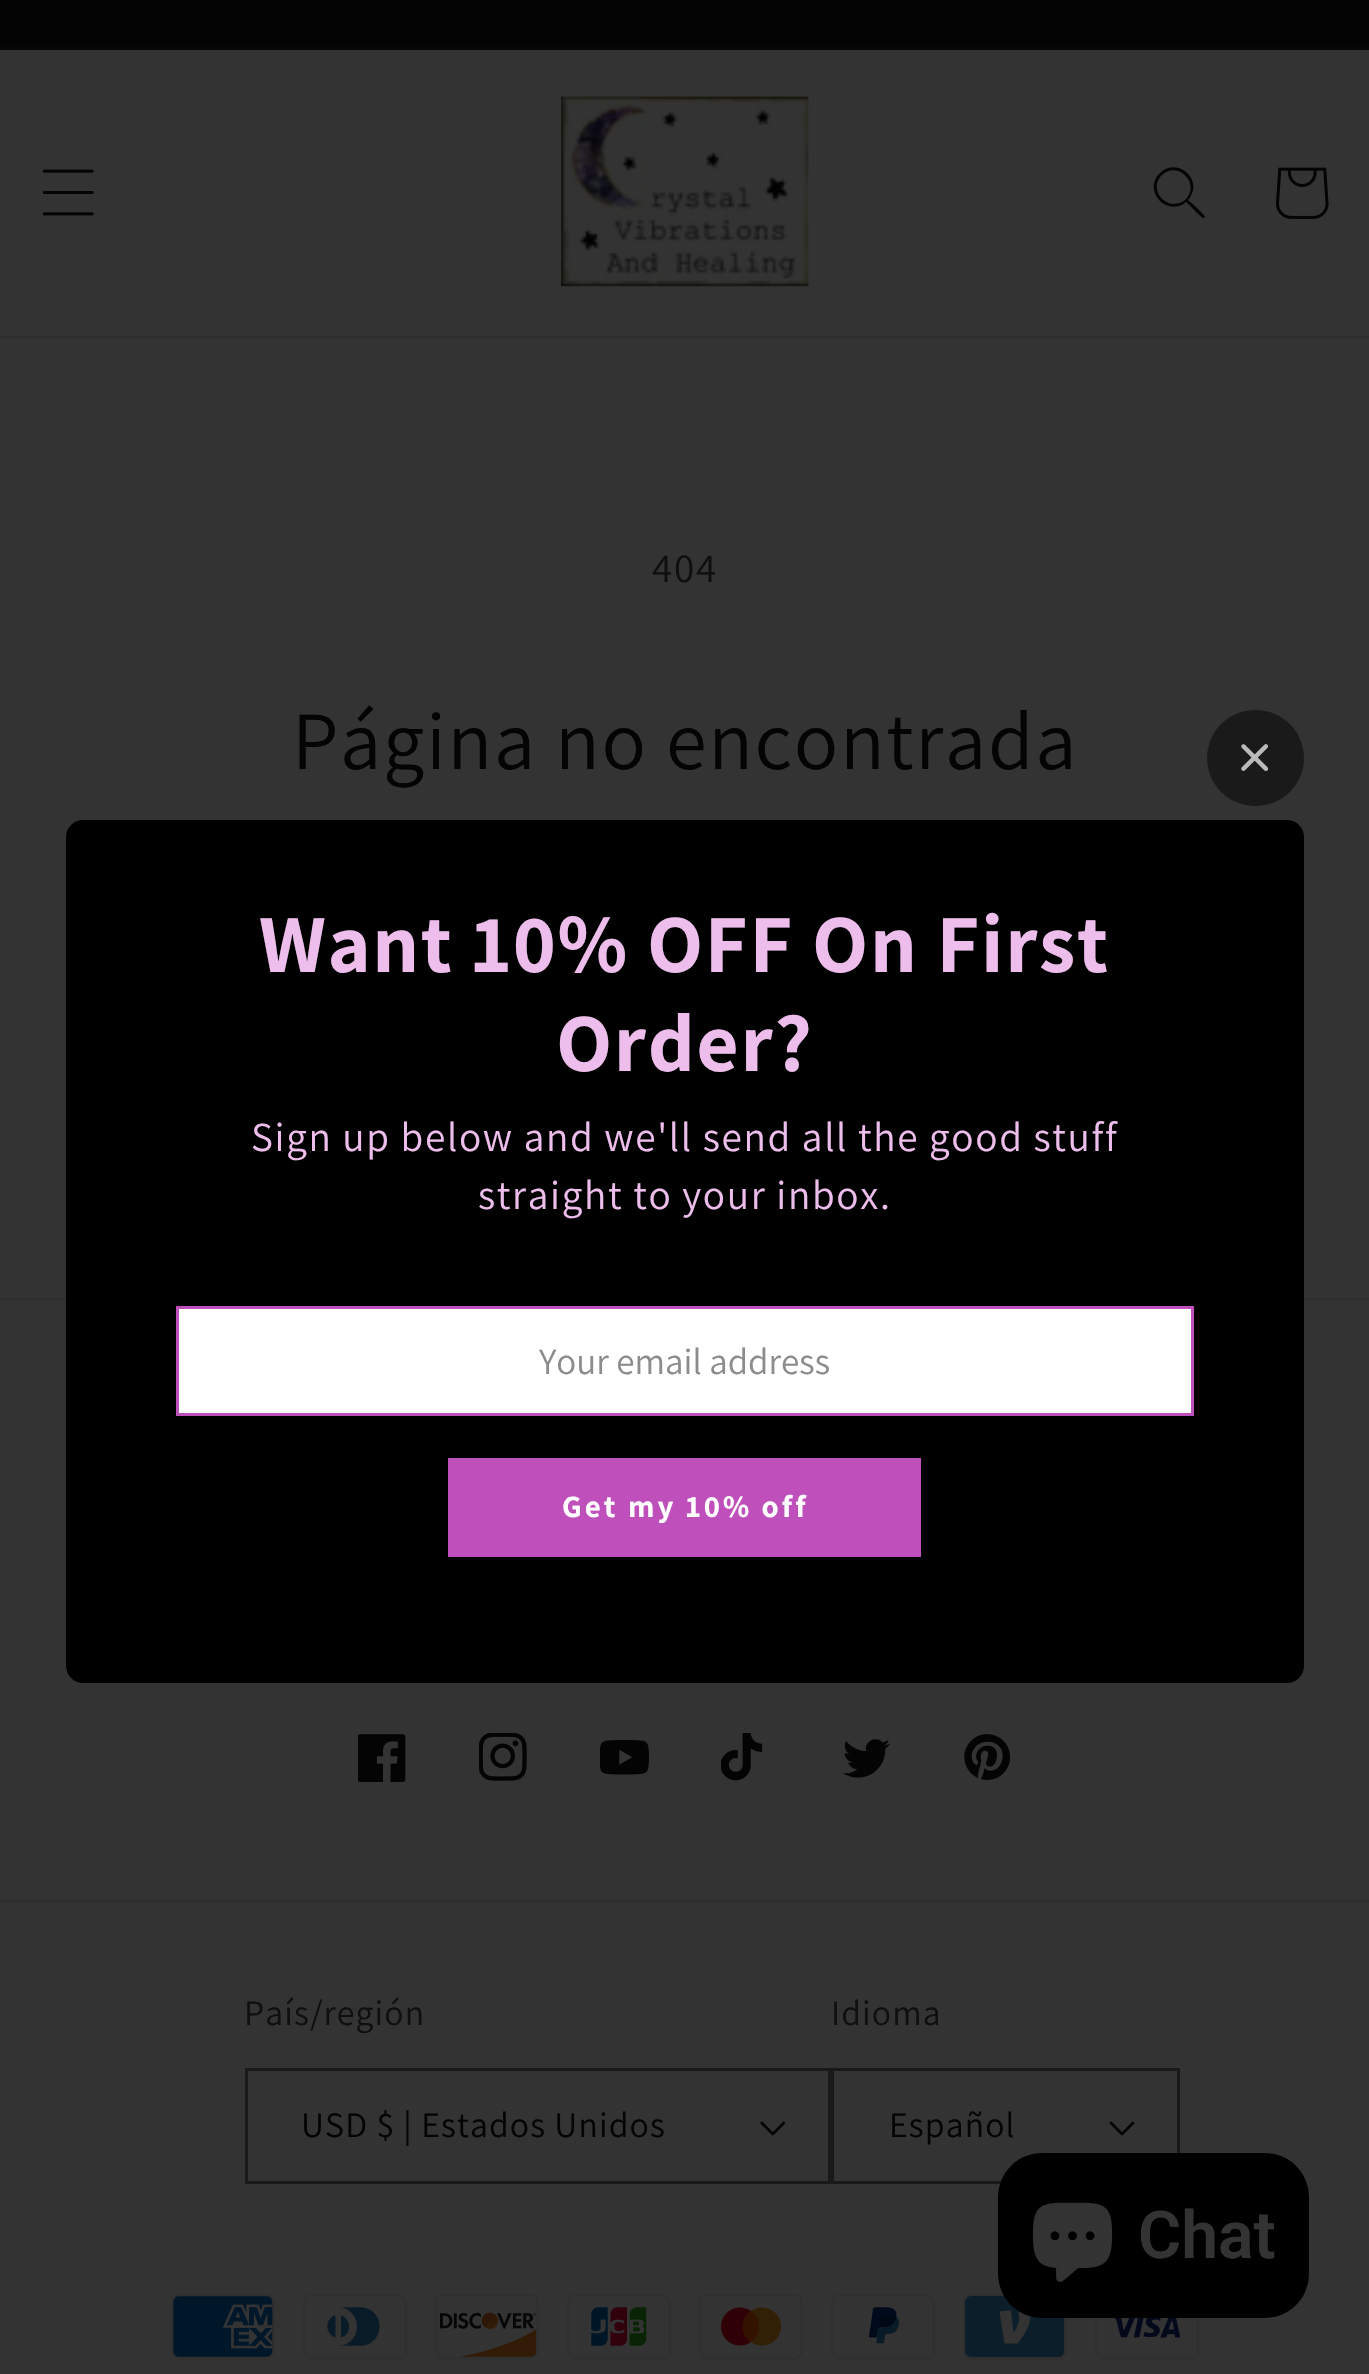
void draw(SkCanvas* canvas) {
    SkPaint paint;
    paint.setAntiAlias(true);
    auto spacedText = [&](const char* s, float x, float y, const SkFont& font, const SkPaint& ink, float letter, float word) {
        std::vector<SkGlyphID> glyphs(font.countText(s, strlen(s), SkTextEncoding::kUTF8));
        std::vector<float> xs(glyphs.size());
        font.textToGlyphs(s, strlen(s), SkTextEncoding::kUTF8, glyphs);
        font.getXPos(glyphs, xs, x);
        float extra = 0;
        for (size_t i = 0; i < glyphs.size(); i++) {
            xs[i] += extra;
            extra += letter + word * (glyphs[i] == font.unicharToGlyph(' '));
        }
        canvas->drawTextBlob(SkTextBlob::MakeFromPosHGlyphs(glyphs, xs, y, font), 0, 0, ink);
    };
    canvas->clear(0xFF333333);
    paint.setColor(0xFF040404);
    canvas->drawRect(SkRect::MakeXYWH(0, 0, 1369, 47), paint);
    paint.setColor(0xFF070707);
    canvas->drawRect(SkRect::MakeXYWH(0, 47, 1369, 3), paint);
    paint.setColor(0xFF2F2F2F);
    canvas->drawRect(SkRect::MakeXYWH(0, 336, 1369, 3), paint);
    canvas->drawImageRect(SkImages::DeferredFromEncodedData(SkData::MakeFromFileName("img1.png")), SkRect::MakeXYWH(42, 169, 52, 47), SkSamplingOptions());
    canvas->drawImageRect(SkImages::DeferredFromEncodedData(SkData::MakeFromFileName("img2.png")), SkRect::MakeXYWH(561, 96, 248, 191), SkSamplingOptions());
    paint.setColor(0xFF040404);
    canvas->drawPath(SkPathBuilder(SkPathFillType::kEvenOdd).moveTo(1186, 199).cubicTo(1170, 214, 1146, 191, 1162, 175).cubicTo(1177, 160, 1201, 183, 1186, 199).close().moveTo(1186, 202).cubicTo(1167, 218, 1142, 190, 1160, 173).cubicTo(1178, 156, 1205, 181, 1188, 200).cubicTo(1191, 202, 1205, 215, 1205, 217).lineTo(1204, 218).cubicTo(1202, 219, 1189, 204, 1186, 202).close().detach(), paint);
    canvas->drawImageRect(SkImages::DeferredFromEncodedData(SkData::MakeFromFileName("img3.png")), SkRect::MakeXYWH(1276, 167, 53, 52), SkSamplingOptions());
    SkFont font1(fontMgr->matchFamilyStyle("Assistant", SkFontStyle::Normal()), 41.25f);
    font1.setSubpixel(true);
    paint.setColor(0xFF0F0F0F);
    spacedText("404", 652, 582, font1, paint, 1.65f, 0);
    SkFont font2(fontMgr->matchFamilyStyle("Assistant", SkFontStyle::Normal()), 82.5f);
    font2.setSubpixel(true);
    paint.setColor(0xFF040404);
    spacedText("Página no encontrada", 292, 769, font2, paint, 1.65f, 0);
    paint.setColor(0xFF1A1A1A);
    canvas->drawRoundRect(SkRect::MakeXYWH(1207, 710, 97, 96), 48, 48, paint);
    canvas->drawImageRect(SkImages::DeferredFromEncodedData(SkData::MakeFromFileName("img4.png")), SkRect::MakeXYWH(1241, 744, 28, 27), SkSamplingOptions());
    paint.setColor(0xFF2F2F2F);
    canvas->drawRect(SkRect::MakeXYWH(0, 1298, 1369, 3), paint);
    paint.setColor(0xFF000000);
    canvas->drawRoundRect(SkRect::MakeXYWH(66, 820, 1238, 863), 17, 17, paint);
    SkFont font3(fontMgr->matchFamilyStyle("Assistant", SkFontStyle::Bold()), 82.5f);
    font3.setSubpixel(true);
    paint.setColor(0xFFEDBEEB);
    spacedText("Want 10% OFF On First", 259, 972, font3, paint, 1.65f, 0);
    spacedText("Order?", 556, 1071, font3, paint, 1.65f, 0);
    spacedText("Sign up below and we'll send all the good stuff", 251, 1151, font1, paint, 1.65f, 0);
    spacedText("straight to your inbox.", 478, 1209, font1, paint, 1.65f, 0);
    paint.setColor(0xFFFFFFFF);
    canvas->drawRect(SkRect::MakeXYWH(177.5f, 1307.5f, 1015, 107), paint);
    paint.setStyle(SkPaint::kStroke_Style);
    paint.setStrokeWidth(3);
    paint.setColor(0xFFBE4FBB);
    canvas->drawRect(SkRect::MakeXYWH(177.5f, 1307.5f, 1015, 107), paint);
    SkFont font4(fontMgr->matchFamilyStyle("Assistant", SkFontStyle::Normal()), 37);
    font4.setSubpixel(true);
    paint.setStyle(SkPaint::kFill_Style);
    paint.setColor(0xFF8C8C8C);
    canvas->drawString("Your email address", 539, 1374, font4, paint);
    paint.setColor(0xFFBE4FBB);
    canvas->drawRect(SkRect::MakeXYWH(448, 1458, 473, 99), paint);
    SkFont font5(fontMgr->matchFamilyStyle("Assistant", SkFontStyle::Bold()), 31);
    font5.setSubpixel(true);
    paint.setColor(0xFFFFFFFF);
    spacedText("Get my 10% off", 562, 1517, font5, paint, 3.1f, 0);
    canvas->drawImageRect(SkImages::DeferredFromEncodedData(SkData::MakeFromFileName("img5.png")), SkRect::MakeXYWH(358, 1734, 48, 48), SkSamplingOptions());
    canvas->drawImageRect(SkImages::DeferredFromEncodedData(SkData::MakeFromFileName("img6.png")), SkRect::MakeXYWH(479, 1733, 48, 48), SkSamplingOptions());
    canvas->drawImageRect(SkImages::DeferredFromEncodedData(SkData::MakeFromFileName("img7.png")), SkRect::MakeXYWH(600, 1739, 49, 36), SkSamplingOptions());
    canvas->drawImageRect(SkImages::DeferredFromEncodedData(SkData::MakeFromFileName("img8.png")), SkRect::MakeXYWH(721, 1733, 42, 48), SkSamplingOptions());
    canvas->drawImageRect(SkImages::DeferredFromEncodedData(SkData::MakeFromFileName("img9.png")), SkRect::MakeXYWH(843, 1739, 47, 39), SkSamplingOptions());
    canvas->drawImageRect(SkImages::DeferredFromEncodedData(SkData::MakeFromFileName("img10.png")), SkRect::MakeXYWH(964, 1734, 47, 46), SkSamplingOptions());
    paint.setColor(0xFF2F2F2F);
    canvas->drawRect(SkRect::MakeXYWH(0, 1900, 1369, 3), paint);
    SkFont font6(fontMgr->matchFamilyStyle("Assistant", SkFontStyle::Normal()), 35.75f);
    font6.setSubpixel(true);
    paint.setColor(0xFF0F0F0F);
    spacedText("País/región", 244, 2025, font6, paint, 1.1f, 0);
    canvas->drawImageRect(SkImages::DeferredFromEncodedData(SkData::MakeFromFileName("img11.png")), SkRect::MakeXYWH(760, 2121, 26, 15), SkSamplingOptions());
    paint.setStyle(SkPaint::kStroke_Style);
    paint.setColor(0xFF191919);
    canvas->drawRect(SkRect::MakeXYWH(246.5f, 2069.5f, 583, 113), paint);
    paint.setStyle(SkPaint::kFill_Style);
    paint.setColor(0xFF040404);
    spacedText("USD $ | Estados Unidos", 301, 2137, font6, paint, 1.1f, 0);
    paint.setColor(0xFF0F0F0F);
    spacedText("Idioma", 831, 2025, font6, paint, 1.1f, 0);
    canvas->drawImageRect(SkImages::DeferredFromEncodedData(SkData::MakeFromFileName("img12.png")), SkRect::MakeXYWH(1109, 2121, 26, 15), SkSamplingOptions());
    paint.setStyle(SkPaint::kStroke_Style);
    paint.setColor(0xFF191919);
    canvas->drawRect(SkRect::MakeXYWH(832.5f, 2069.5f, 346, 113), paint);
    paint.setStyle(SkPaint::kFill_Style);
    paint.setColor(0xFF040404);
    spacedText("Español", 889, 2137, font6, paint, 1.1f, 0);
    canvas->drawImageRect(SkImages::DeferredFromEncodedData(SkData::MakeFromFileName("img13.png")), SkRect::MakeXYWH(171, 2294, 104, 66), SkSamplingOptions());
    canvas->drawImageRect(SkImages::DeferredFromEncodedData(SkData::MakeFromFileName("img14.png")), SkRect::MakeXYWH(303, 2294, 104, 66), SkSamplingOptions());
    canvas->drawImageRect(SkImages::DeferredFromEncodedData(SkData::MakeFromFileName("img15.png")), SkRect::MakeXYWH(435, 2294, 104, 66), SkSamplingOptions());
    canvas->drawImageRect(SkImages::DeferredFromEncodedData(SkData::MakeFromFileName("img16.png")), SkRect::MakeXYWH(567, 2294, 104, 66), SkSamplingOptions());
    canvas->drawImageRect(SkImages::DeferredFromEncodedData(SkData::MakeFromFileName("img17.png")), SkRect::MakeXYWH(699, 2294, 104, 66), SkSamplingOptions());
    canvas->drawImageRect(SkImages::DeferredFromEncodedData(SkData::MakeFromFileName("img18.png")), SkRect::MakeXYWH(831, 2294, 104, 66), SkSamplingOptions());
    paint.setColor(0xFF2F2F2F);
    canvas->drawRoundRect(SkRect::MakeXYWH(963, 2294, 104, 66), 8, 8, paint);
    paint.setColor(0xFF0C1E29);
    canvas->drawPath(SkPathBuilder(SkPathFillType::kEvenOdd).moveTo(1059, 2296).cubicTo(1062, 2296, 1064, 2299, 1064, 2302).lineTo(1064, 2351).cubicTo(1064, 2354, 1062, 2357, 1059, 2357).lineTo(971, 2357).cubicTo(968, 2357, 965, 2354, 965, 2351).lineTo(965, 2302).cubicTo(965, 2299, 968, 2296, 971, 2296).lineTo(1059, 2296).detach(), paint);
    paint.setColor(0xFF333333);
    canvas->drawPath(SkPathBuilder().moveTo(1030.5f, 2316.5f).cubicTo(1030.5f, 2325, 1023.5f, 2336, 1017.5f, 2343.5f).lineTo(1004.5f, 2343.5f).lineTo(999.5f, 2311.5f).lineTo(1011, 2310.5f).lineTo(1013.5f, 2333).cubicTo(1017, 2327.5f, 1021.5f, 2319, 1018, 2312).lineTo(1028.5f, 2309.5f).cubicTo(1030, 2312, 1030.5f, 2314, 1030.5f, 2316.5f).close().detach(), paint);
    canvas->drawImageRect(SkImages::DeferredFromEncodedData(SkData::MakeFromFileName("img19.png")), SkRect::MakeXYWH(1095, 2318, 104, 42), SkSamplingOptions());
    paint.setColor(0xFF000000);
    canvas->drawRoundRect(SkRect::MakeXYWH(998, 2153, 311, 165), 44, 44, paint);
    canvas->drawImageRect(SkImages::DeferredFromEncodedData(SkData::MakeFromFileName("img20.png")), SkRect::MakeXYWH(1032, 2202, 81, 80), SkSamplingOptions());
    SkFont font7(fontMgr->matchFamilyStyle("Roboto", SkFontStyle(600, SkFontStyle::kNormal_Width, SkFontStyle::kUpright_Slant)), 66);
    font7.setSubpixel(true);
    paint.setColor(0xFF333333);
    canvas->drawString("Chat", 1138, 2258, font7, paint);
}
